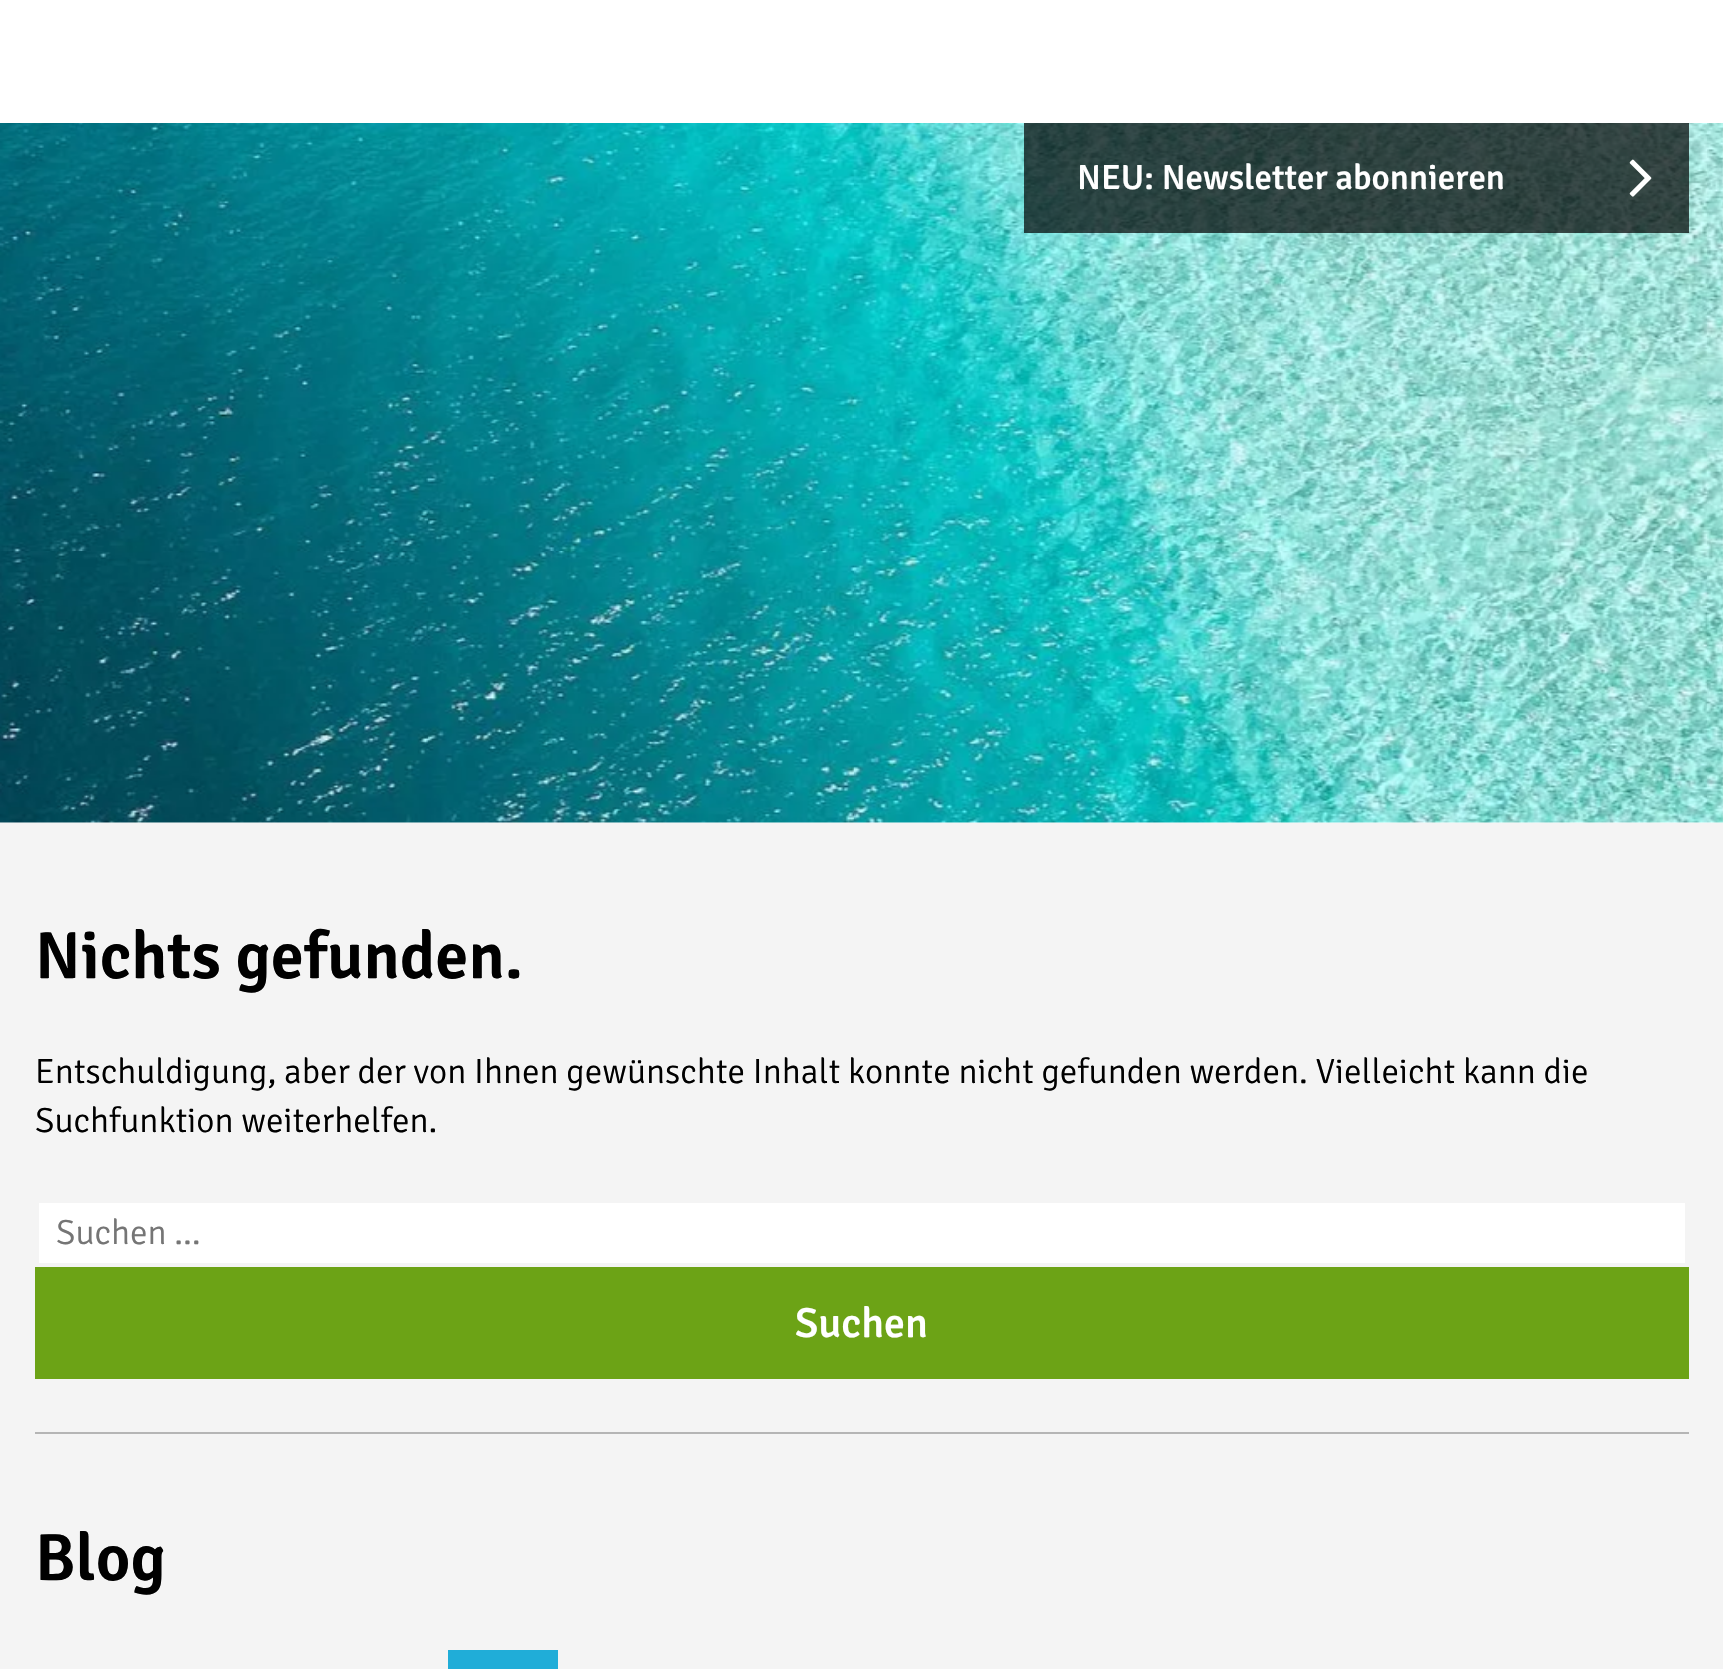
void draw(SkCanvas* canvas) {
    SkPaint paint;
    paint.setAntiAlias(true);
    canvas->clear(0xFFFFFFFF);
    canvas->drawImageRect(SkImages::DeferredFromEncodedData(SkData::MakeFromFileName("img1.png")), SkRect::MakeXYWH(0, 123, 1723, 700), SkSamplingOptions());
    paint.setColor(0xB3000000);
    canvas->drawRect(SkRect::MakeXYWH(1024, 123, 665, 110), paint);
    SkFont font1(fontMgr->matchFamilyStyle("Signika", SkFontStyle(500, SkFontStyle::kNormal_Width, SkFontStyle::kUpright_Slant)), 35);
    font1.setSubpixel(true);
    paint.setColor(0xFFFFFFFF);
    canvas->drawString("NEU: Newsletter abonnieren", 1077, 189, font1, paint);
    canvas->drawImageRect(SkImages::DeferredFromEncodedData(SkData::MakeFromFileName("img2.png")), SkRect::MakeXYWH(1629, 159, 23, 38), SkSamplingOptions());
    paint.setColor(0xFFF4F4F4);
    canvas->drawRect(SkRect::MakeXYWH(0, 823, 1723, 846), paint);
    SkFont font2(fontMgr->matchFamilyStyle("Signika", SkFontStyle(600, SkFontStyle::kNormal_Width, SkFontStyle::kUpright_Slant)), 66.5f);
    font2.setSubpixel(true);
    paint.setColor(0xFF000000);
    canvas->drawString("Nichts gefunden.", 35, 978, font2, paint);
    SkFont font3(fontMgr->matchFamilyStyle("Signika", SkFontStyle(300, SkFontStyle::kNormal_Width, SkFontStyle::kUpright_Slant)), 35);
    font3.setSubpixel(true);
    canvas->drawString("Entschuldigung, aber der von Ihnen gewünschte Inhalt konnte nicht gefunden werden. Vielleicht kann die", 35, 1083, font3, paint);
    canvas->drawString("Suchfunktion weiterhelfen.", 35, 1132, font3, paint);
    paint.setColor(0xFFFFFFFF);
    canvas->drawRect(SkRect::MakeXYWH(39, 1203, 1646, 60), paint);
    paint.setColor(0xFF757575);
    canvas->drawString("Suchen …", 56, 1244, font3, paint);
    paint.setColor(0xFF6CA316);
    canvas->drawRect(SkRect::MakeXYWH(35, 1267, 1654, 112), paint);
    SkFont font4(fontMgr->matchFamilyStyle("Signika", SkFontStyle(500, SkFontStyle::kNormal_Width, SkFontStyle::kUpright_Slant)), 42);
    font4.setSubpixel(true);
    paint.setColor(0xFFFFFFFF);
    canvas->drawString("Suchen", 795, 1337, font4, paint);
    paint.setColor(0xFFB5B5B5);
    canvas->drawRect(SkRect::MakeXYWH(35, 1432, 1654, 2), paint);
    paint.setColor(0xFF000000);
    canvas->drawString("Blog", 35, 1580, font2, paint);
    paint.setColor(0xFF20ADD8);
    canvas->drawRect(SkRect::MakeXYWH(448, 1650, 110, 19), paint);
}
